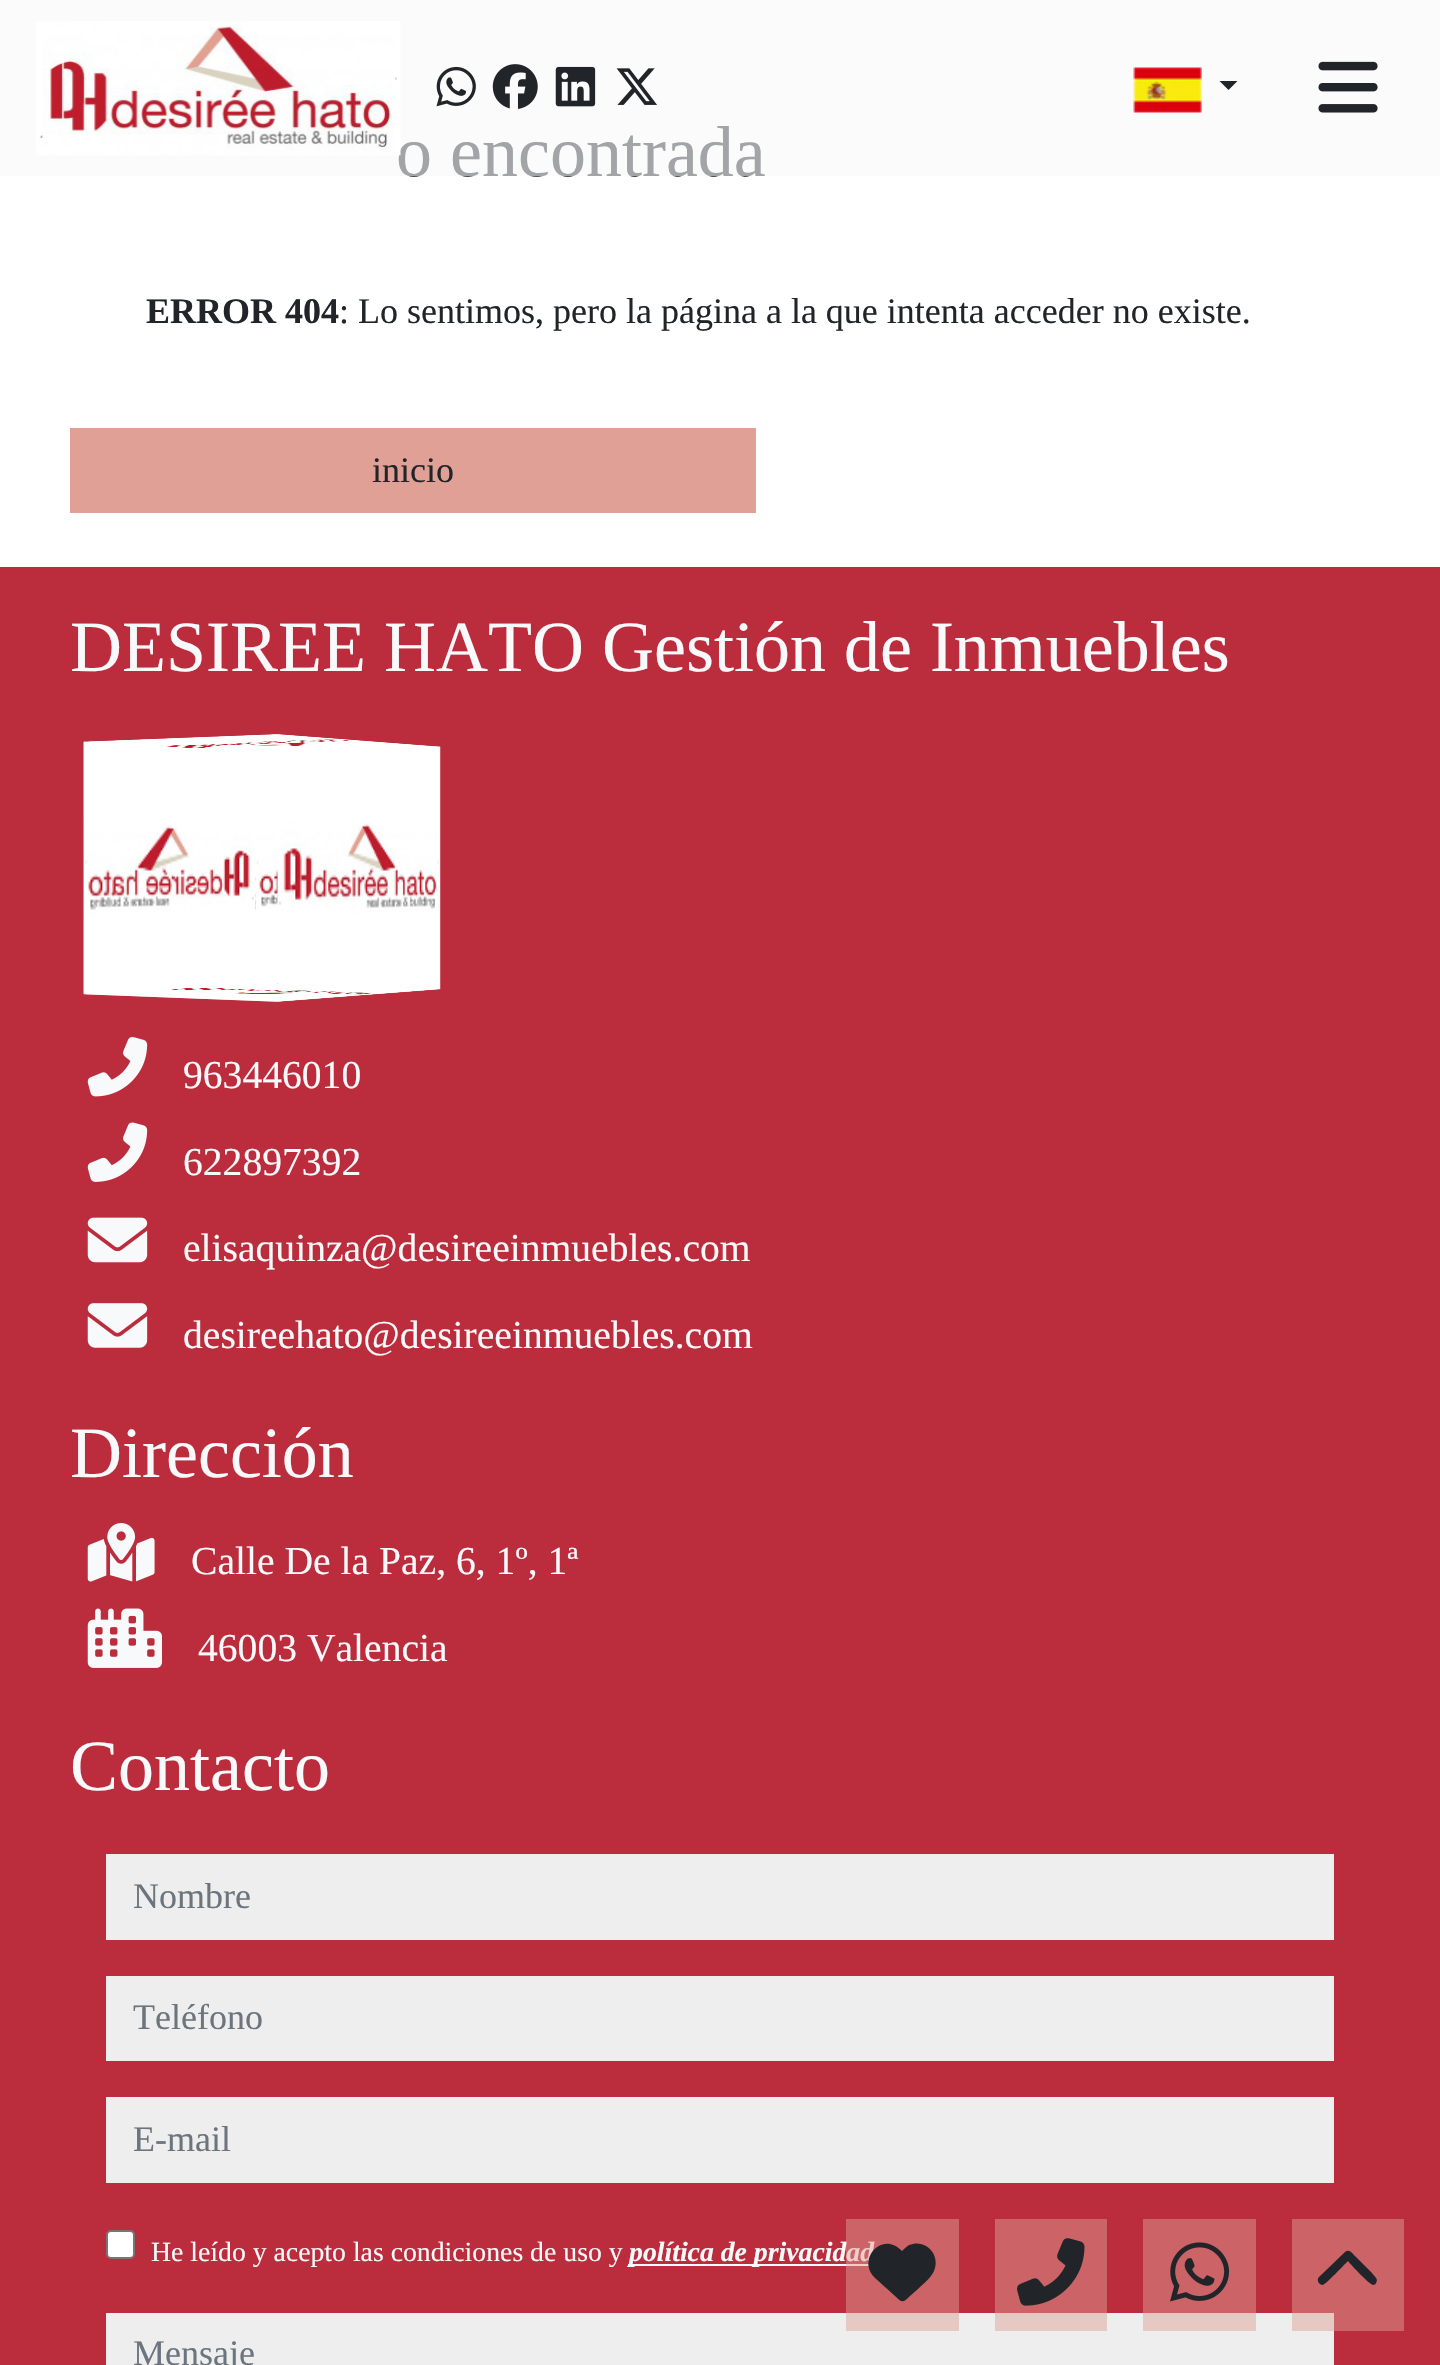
void draw(SkCanvas* canvas) {
    SkPaint paint;
    paint.setAntiAlias(true);
    canvas->clear(0xFFFFFFFF);
    SkFont font1(fontMgr->matchFamilyStyle("Liberation Serif", SkFontStyle::Normal()), 72);
    font1.setSubpixel(true);
    paint.setColor(0xFF212529);
    canvas->drawString("o encontrada", 396, 176, font1, paint);
    paint.setColor(0x99F8F9FA);
    canvas->drawRect(SkRect::MakeXYWH(0, 0, 1440, 176), paint);
    canvas->drawImageRect(SkImages::DeferredFromEncodedData(SkData::MakeFromFileName("img1.png")), SkRect::MakeXYWH(36, 21, 365, 135), SkSamplingOptions());
    canvas->drawImageRect(SkImages::DeferredFromEncodedData(SkData::MakeFromFileName("img2.png")), SkRect::MakeXYWH(436, 66, 40, 41), SkSamplingOptions());
    canvas->drawImageRect(SkImages::DeferredFromEncodedData(SkData::MakeFromFileName("img3.png")), SkRect::MakeXYWH(492, 64, 46, 45), SkSamplingOptions());
    canvas->drawImageRect(SkImages::DeferredFromEncodedData(SkData::MakeFromFileName("img4.png")), SkRect::MakeXYWH(555, 66, 41, 41), SkSamplingOptions());
    canvas->drawImageRect(SkImages::DeferredFromEncodedData(SkData::MakeFromFileName("img5.png")), SkRect::MakeXYWH(616, 68, 41, 37), SkSamplingOptions());
    canvas->drawImageRect(SkImages::DeferredFromEncodedData(SkData::MakeFromFileName("img6.png")), SkRect::MakeXYWH(1133, 67, 69, 46), SkSamplingOptions());
    paint.setColor(0xFF212529);
    canvas->drawPath(SkPathBuilder().moveTo(1219.5f, 81).lineTo(1237.5f, 81).lineTo(1228.5f, 90).close().detach(), paint);
    canvas->drawImageRect(SkImages::DeferredFromEncodedData(SkData::MakeFromFileName("img7.png")), SkRect::MakeXYWH(1318, 61, 60, 52), SkSamplingOptions());
    SkFont font2(fontMgr->matchFamilyStyle("Liberation Serif", SkFontStyle::Bold()), 36);
    font2.setSubpixel(true);
    canvas->drawString("ERROR 404", 146, 323, font2, paint);
    SkFont font3(fontMgr->matchFamilyStyle("Liberation Serif", SkFontStyle::Normal()), 36);
    font3.setSubpixel(true);
    canvas->drawString(": Lo sentimos, pero la página a la que intenta acceder no existe.", 339, 323, font3, paint);
    paint.setColor(0xFFE0A095);
    canvas->drawRect(SkRect::MakeXYWH(70, 428, 686, 85), paint);
    paint.setColor(0xFF212529);
    canvas->drawString("inicio", 372, 482, font3, paint);
    paint.setColor(0xFFBB2D3D);
    canvas->drawRect(SkRect::MakeXYWH(0, 567, 1440, 1798), paint);
    paint.setColor(0xFFCC6366);
    canvas->drawRect(SkRect::MakeXYWH(995, 2219, 112, 94), paint);
    canvas->drawRect(SkRect::MakeXYWH(1143, 2219, 113, 94), paint);
    canvas->drawRect(SkRect::MakeXYWH(1292, 2219, 112, 112), paint);
    paint.setColor(0xFFF8F9FA);
    canvas->drawString("DESIREE HATO Gestión de Inmuebles", 70, 671, font1, paint);
    canvas->drawImageRect(SkImages::DeferredFromEncodedData(SkData::MakeFromFileName("img8.png")), SkRect::MakeXYWH(83, 734, 195, 268), SkSamplingOptions());
    canvas->drawImageRect(SkImages::DeferredFromEncodedData(SkData::MakeFromFileName("img12.png")), SkRect::MakeXYWH(255, 746, 186, 244), SkSamplingOptions());
    canvas->drawImageRect(SkImages::DeferredFromEncodedData(SkData::MakeFromFileName("img10.png")), SkRect::MakeXYWH(83, 741, 173, 254), SkSamplingOptions());
    canvas->drawImageRect(SkImages::DeferredFromEncodedData(SkData::MakeFromFileName("img11.png")), SkRect::MakeXYWH(277, 734, 164, 268), SkSamplingOptions());
    canvas->drawImageRect(SkImages::DeferredFromEncodedData(SkData::MakeFromFileName("img9.png")), SkRect::MakeXYWH(87, 734, 352, 18), SkSamplingOptions());
    canvas->drawImageRect(SkImages::DeferredFromEncodedData(SkData::MakeFromFileName("img13.png")), SkRect::MakeXYWH(84, 984, 355, 18), SkSamplingOptions());
    canvas->drawImageRect(SkImages::DeferredFromEncodedData(SkData::MakeFromFileName("img14.png")), SkRect::MakeXYWH(87, 1037, 61, 60), SkSamplingOptions());
    SkFont font4(fontMgr->matchFamilyStyle("Liberation Serif", SkFontStyle::Normal()), 39.6f);
    font4.setSubpixel(true);
    canvas->drawString("963446010", 183, 1088, font4, paint);
    canvas->drawImageRect(SkImages::DeferredFromEncodedData(SkData::MakeFromFileName("img15.png")), SkRect::MakeXYWH(87, 1122, 61, 60), SkSamplingOptions());
    canvas->drawString("622897392", 183, 1175, font4, paint);
    canvas->drawImageRect(SkImages::DeferredFromEncodedData(SkData::MakeFromFileName("img16.png")), SkRect::MakeXYWH(87, 1217, 61, 46), SkSamplingOptions());
    canvas->drawString("elisaquinza@desireeinmuebles.com", 183, 1261, font4, paint);
    canvas->drawImageRect(SkImages::DeferredFromEncodedData(SkData::MakeFromFileName("img17.png")), SkRect::MakeXYWH(87, 1303, 61, 45), SkSamplingOptions());
    canvas->drawString("desireehato@desireeinmuebles.com", 183, 1348, font4, paint);
    canvas->drawString("Dirección", 70, 1477, font1, paint);
    canvas->drawImageRect(SkImages::DeferredFromEncodedData(SkData::MakeFromFileName("img18.png")), SkRect::MakeXYWH(87, 1523, 68, 59), SkSamplingOptions());
    canvas->drawString("Calle De la Paz, 6, 1º, 1ª", 191, 1574, font4, paint);
    canvas->drawImageRect(SkImages::DeferredFromEncodedData(SkData::MakeFromFileName("img19.png")), SkRect::MakeXYWH(87, 1608, 75, 60), SkSamplingOptions());
    canvas->drawString("46003 Valencia", 198, 1661, font4, paint);
    canvas->drawString("Contacto", 70, 1790, font1, paint);
    paint.setColor(0xFFEEEEEE);
    canvas->drawRect(SkRect::MakeXYWH(106, 1854, 1228, 86), paint);
    paint.setColor(0xFF6C757D);
    canvas->drawString("Nombre", 133, 1908, font3, paint);
    paint.setColor(0xFFEEEEEE);
    canvas->drawRect(SkRect::MakeXYWH(106, 1976, 1228, 85), paint);
    paint.setColor(0xFF6C757D);
    canvas->drawString("Teléfono", 133, 2029, font3, paint);
    paint.setColor(0xFFEEEEEE);
    canvas->drawRect(SkRect::MakeXYWH(106, 2097, 1228, 86), paint);
    paint.setColor(0xFF6C757D);
    canvas->drawString("E-mail", 133, 2151, font3, paint);
    paint.setColor(0xFFFFFFFF);
    canvas->drawRoundRect(SkRect::MakeXYWH(107, 2231, 27, 27), 4, 4, paint);
    paint.setStyle(SkPaint::kStroke_Style);
    paint.setStrokeWidth(2);
    paint.setColor(0xFF767676);
    canvas->drawRoundRect(SkRect::MakeXYWH(107, 2231, 27, 27), 4, 4, paint);
    SkFont font5(fontMgr->matchFamilyStyle("Liberation Serif", SkFontStyle::Normal()), 27.75f);
    font5.setSubpixel(true);
    paint.setStyle(SkPaint::kFill_Style);
    paint.setColor(0xFFF8F9FA);
    canvas->drawString("He leído y acepto las condiciones de uso y", 151, 2261, font5, paint);
    canvas->drawRect(SkRect::MakeXYWH(628, 2264, 245, 2), paint);
    SkFont font6(fontMgr->matchFamilyStyle("Liberation Serif", SkFontStyle::BoldItalic()), 27.75f);
    font6.setSubpixel(true);
    canvas->drawString("política de privacidad", 629, 2261, font6, paint);
    paint.setColor(0xFFEEEEEE);
    canvas->drawRect(SkRect::MakeXYWH(106, 2313, 1228, 52), paint);
    paint.setColor(0xFFE7C9C4);
    canvas->drawRect(SkRect::MakeXYWH(995, 2313, 112, 18), paint);
    canvas->drawRect(SkRect::MakeXYWH(1143, 2313, 113, 18), paint);
    canvas->drawRect(SkRect::MakeXYWH(1292, 2313, 42, 18), paint);
    paint.setColor(0xFF6C757D);
    canvas->drawString("Mensaje", 133, 2365, font3, paint);
    paint.setColor(0x78E0A095);
    canvas->drawRect(SkRect::MakeXYWH(846, 2219, 113, 112), paint);
    paint.setColor(0xFF212529);
    canvas->drawPath(SkPathBuilder().moveTo(875, 2278).lineTo(899, 2300).lineTo(875, 2278).lineTo(895, 2296).cubicTo(902, 2303, 903, 2303, 910, 2296).lineTo(918, 2289).cubicTo(923, 2284, 931, 2278, 934, 2271).cubicTo(941, 2255, 926, 2238, 909, 2245).cubicTo(906, 2247, 904, 2249, 902, 2251).cubicTo(882, 2230, 856, 2260, 875, 2278).close().detach(), paint);
    canvas->drawImageRect(SkImages::DeferredFromEncodedData(SkData::MakeFromFileName("img20.png")), SkRect::MakeXYWH(1017, 2238, 68, 68), SkSamplingOptions());
    canvas->drawImageRect(SkImages::DeferredFromEncodedData(SkData::MakeFromFileName("img21.png")), SkRect::MakeXYWH(1170, 2242, 60, 60), SkSamplingOptions());
    canvas->drawPath(SkPathBuilder().moveTo(1345, 2252).cubicTo(1349, 2248, 1353, 2254, 1355, 2256).lineTo(1372, 2273).cubicTo(1374, 2276, 1379, 2279, 1376, 2283).cubicTo(1376, 2284, 1374, 2285, 1373, 2285).cubicTo(1369, 2284, 1351, 2265, 1348, 2261).cubicTo(1344, 2265, 1326, 2284, 1323, 2285).cubicTo(1319, 2285, 1316, 2280, 1319, 2277).close().detach(), paint);
}
